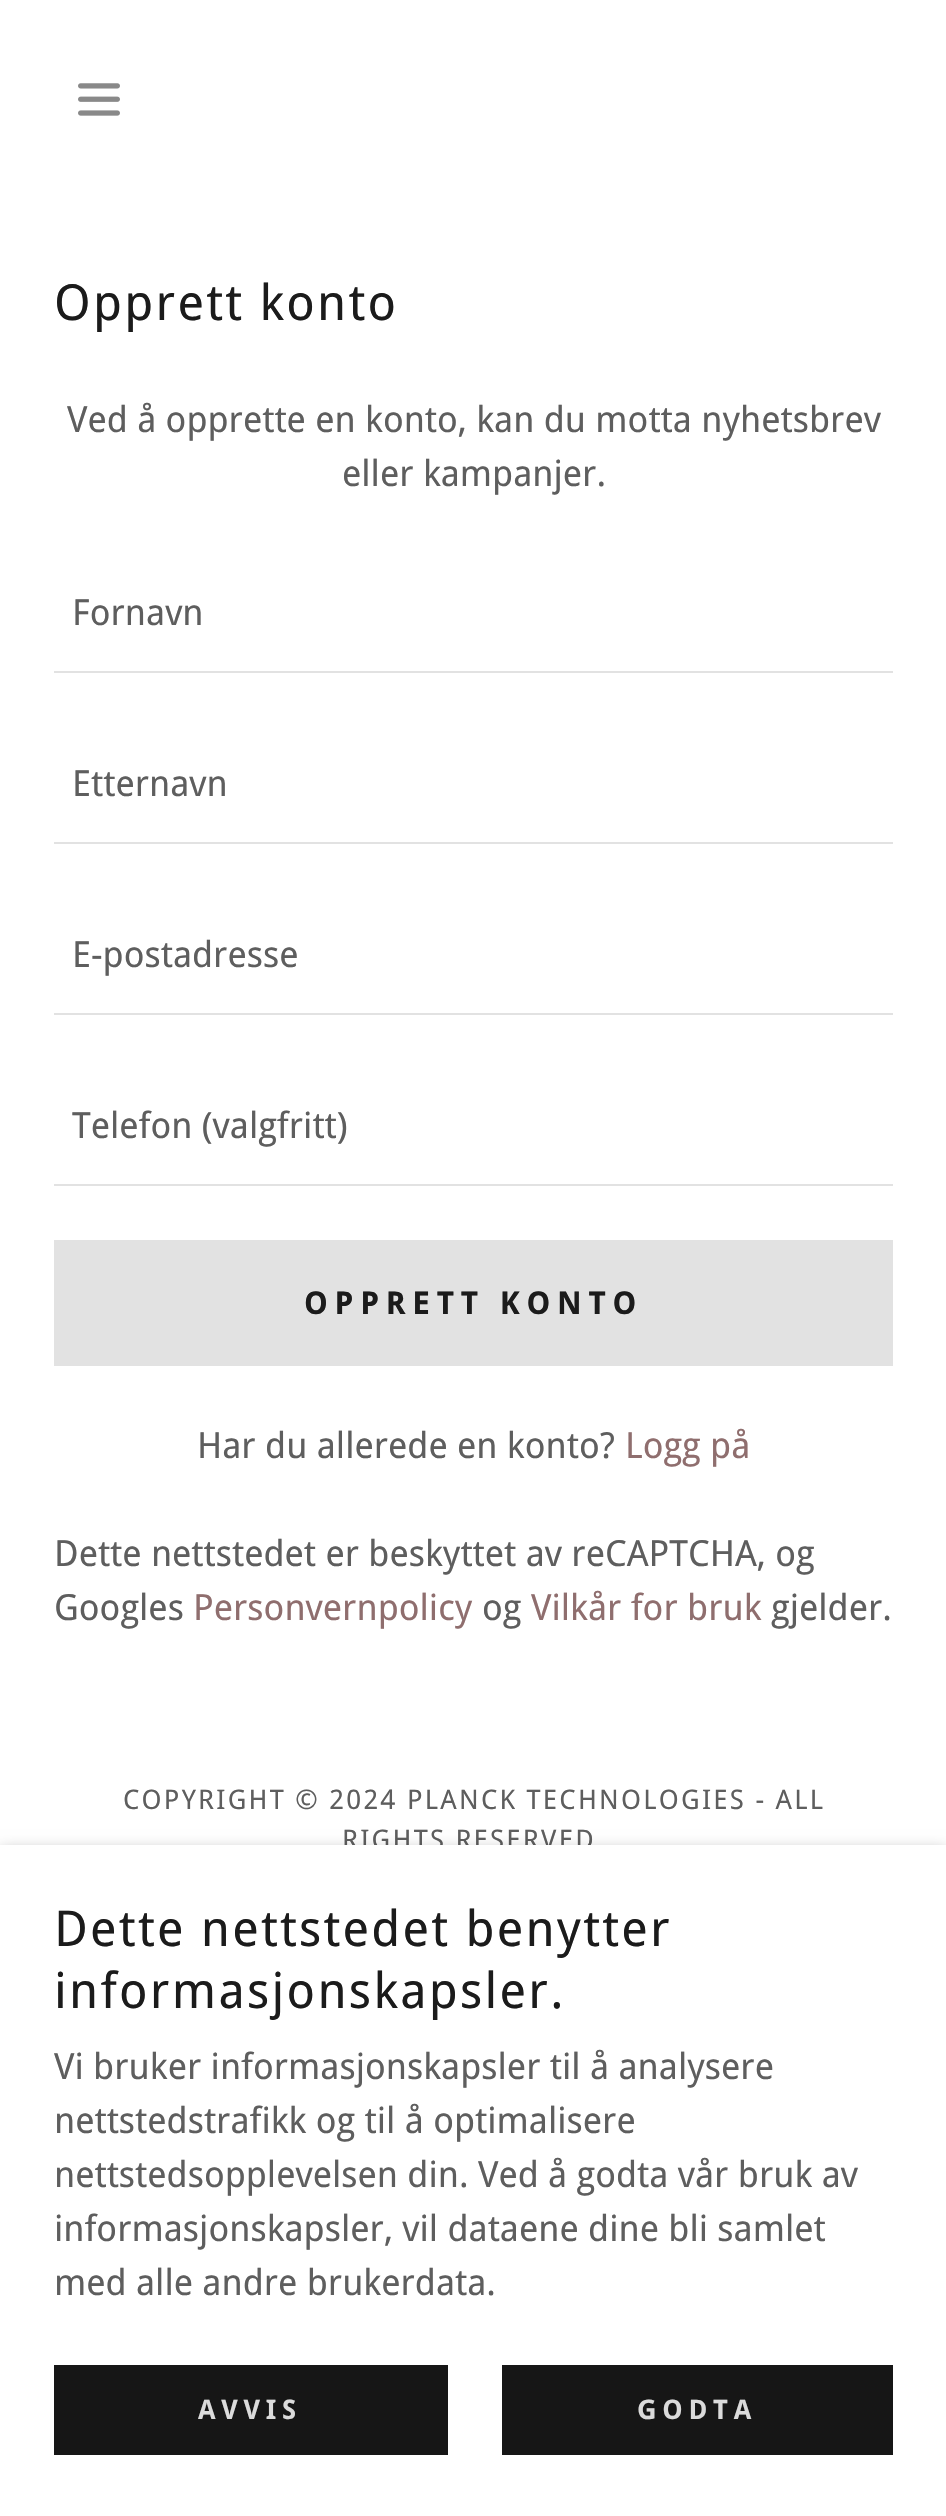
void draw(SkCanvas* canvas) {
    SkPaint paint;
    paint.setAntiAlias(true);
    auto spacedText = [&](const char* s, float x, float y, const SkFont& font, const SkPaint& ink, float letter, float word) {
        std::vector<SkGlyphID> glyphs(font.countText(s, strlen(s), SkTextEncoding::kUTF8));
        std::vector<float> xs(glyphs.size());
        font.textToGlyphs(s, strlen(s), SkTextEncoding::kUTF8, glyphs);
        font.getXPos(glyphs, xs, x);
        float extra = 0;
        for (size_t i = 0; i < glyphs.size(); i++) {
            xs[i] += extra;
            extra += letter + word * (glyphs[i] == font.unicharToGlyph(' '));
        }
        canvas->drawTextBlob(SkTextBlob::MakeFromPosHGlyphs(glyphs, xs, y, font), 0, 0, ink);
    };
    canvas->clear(0xFFFFFFFF);
    canvas->drawImageRect(SkImages::DeferredFromEncodedData(SkData::MakeFromFileName("img1.png")), SkRect::MakeXYWH(78, 83, 42, 33), SkSamplingOptions());
    SkFont font1(fontMgr->matchFamilyStyle("Droid Sans", SkFontStyle::Normal()), 49.5f);
    font1.setSubpixel(true);
    paint.setColor(0xFF1B1B1B);
    spacedText("Opprett konto", 54, 320, font1, paint, 2.25f, 0);
    SkFont font2(fontMgr->matchFamilyStyle("Droid Sans", SkFontStyle::Normal()), 36);
    font2.setSubpixel(true);
    paint.setColor(0xFF5E5E5E);
    canvas->drawString("Ved å opprette en konto, kan du motta nyhetsbrev", 67, 432, font2, paint);
    canvas->drawString("eller kampanjer.", 342, 486, font2, paint);
    paint.setColor(0xFFE2E2E2);
    canvas->drawRect(SkRect::MakeXYWH(54, 671, 839, 2), paint);
    paint.setColor(0xFF5E5E5E);
    canvas->drawString("Fornavn", 72, 625, font2, paint);
    paint.setColor(0xFFE2E2E2);
    canvas->drawRect(SkRect::MakeXYWH(54, 842, 839, 2), paint);
    paint.setColor(0xFF5E5E5E);
    canvas->drawString("Etternavn", 72, 796, font2, paint);
    paint.setColor(0xFFE2E2E2);
    canvas->drawRect(SkRect::MakeXYWH(54, 1013, 839, 2), paint);
    paint.setColor(0xFF5E5E5E);
    canvas->drawString("E-postadresse", 72, 967, font2, paint);
    paint.setColor(0xFFE2E2E2);
    canvas->drawRect(SkRect::MakeXYWH(54, 1184, 839, 2), paint);
    paint.setColor(0xFF5E5E5E);
    canvas->drawString("Telefon (valgfritt)", 72, 1138, font2, paint);
    paint.setColor(0xFFE2E2E2);
    canvas->drawRect(SkRect::MakeXYWH(54, 1240, 839, 126), paint);
    SkFont font3(fontMgr->matchFamilyStyle("Droid Sans", SkFontStyle::Bold()), 31.5f);
    font3.setSubpixel(true);
    paint.setColor(0xFF1B1B1B);
    spacedText("OPPRETT KONTO", 304, 1314, font3, paint, 6.75f, 0);
    paint.setColor(0xFF5E5E5E);
    canvas->drawString("Har du allerede en konto?", 197, 1458, font2, paint);
    paint.setColor(0xFF8F6E6E);
    canvas->drawString("Logg på", 625, 1458, font2, paint);
    paint.setColor(0xFF5E5E5E);
    canvas->drawString("Dette nettstedet er beskyttet av reCAPTCHA, og", 54, 1566, font2, paint);
    canvas->drawString("Googles", 54, 1620, font2, paint);
    paint.setColor(0xFF8F6E6E);
    canvas->drawString("Personvernpolicy", 193, 1620, font2, paint);
    paint.setColor(0xFF5E5E5E);
    canvas->drawString("og", 482, 1620, font2, paint);
    paint.setColor(0xFF8F6E6E);
    canvas->drawString("Vilkår for bruk", 531, 1620, font2, paint);
    paint.setColor(0xFF5E5E5E);
    canvas->drawString("gjelder.", 771, 1620, font2, paint);
    SkFont font4(fontMgr->matchFamilyStyle("Droid Sans", SkFontStyle::Normal()), 27);
    font4.setSubpixel(true);
    spacedText("COPYRIGHT © 2024 PLANCK TECHNOLOGIES - ALL", 123, 1809, font4, paint, 2.25f, 0);
    spacedText("RIGHTS RESERVED", 342, 1849, font4, paint, 2.25f, 0);
    paint.setColor(0x4D000000);
    paint.setMaskFilter(SkMaskFilter::MakeBlur(kNormal_SkBlurStyle, 7));
    canvas->drawRect(SkRect::MakeXYWH(0, 1850, 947, 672), paint);
    paint.setMaskFilter(nullptr);
    paint.setColor(0xFFFFFFFF);
    canvas->drawRect(SkRect::MakeXYWH(0, 1845, 946, 671), paint);
    paint.setColor(0xFF1B1B1B);
    spacedText("Dette nettstedet benytter", 54, 1946, font1, paint, 2.25f, 0);
    spacedText("informasjonskapsler.", 54, 2008, font1, paint, 2.25f, 0);
    paint.setColor(0xFF5E5E5E);
    canvas->drawString("Vi bruker informasjonskapsler til å analysere", 54, 2079, font2, paint);
    canvas->drawString("nettstedstrafikk og til å optimalisere", 54, 2133, font2, paint);
    canvas->drawString("nettstedsopplevelsen din. Ved å godta vår bruk av", 54, 2187, font2, paint);
    canvas->drawString("informasjonskapsler, vil dataene dine bli samlet", 54, 2241, font2, paint);
    canvas->drawString("med alle andre brukerdata.", 54, 2295, font2, paint);
    paint.setColor(0xFF161616);
    canvas->drawRect(SkRect::MakeXYWH(54, 2365, 394, 90), paint);
    SkFont font5(fontMgr->matchFamilyStyle("Droid Sans", SkFontStyle::Bold()), 27);
    font5.setSubpixel(true);
    paint.setColor(0xFFDBDBDB);
    spacedText("AVVIS", 198, 2419, font5, paint, 5.75f, 0);
    paint.setColor(0xFF161616);
    canvas->drawRect(SkRect::MakeXYWH(502, 2365, 391, 90), paint);
    paint.setColor(0xFFDBDBDB);
    spacedText("GODTA", 637, 2419, font5, paint, 5.75f, 0);
}
